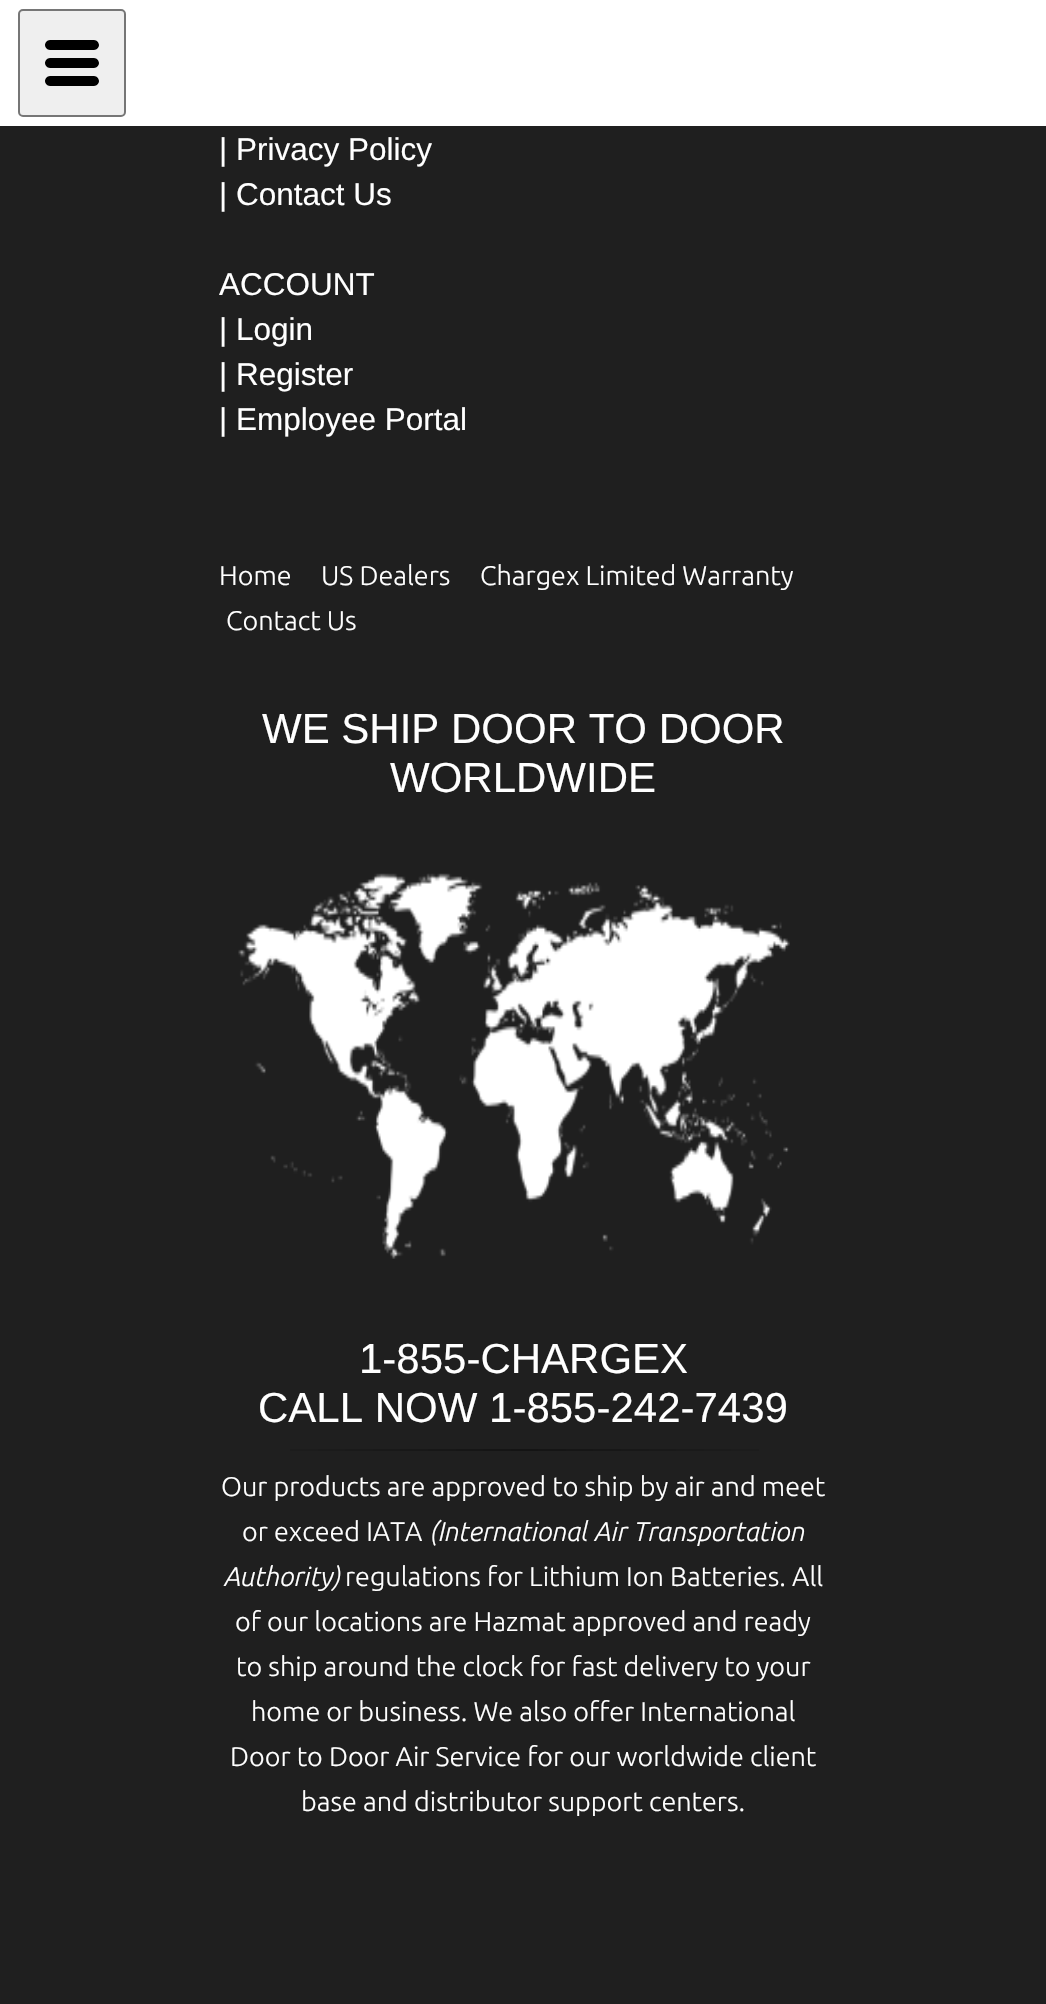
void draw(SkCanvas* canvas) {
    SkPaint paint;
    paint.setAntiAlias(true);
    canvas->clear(0xFF1F1F1F);
    paint.setColor(0xFFFFFFFF);
    canvas->drawRect(SkRect::MakeXYWH(0, 0, 1046, 126), paint);
    paint.setColor(0xFFEFEFEF);
    canvas->drawRoundRect(SkRect::MakeXYWH(19, 10, 106, 106), 4, 4, paint);
    paint.setStyle(SkPaint::kStroke_Style);
    paint.setStrokeWidth(2);
    paint.setColor(0xFF767676);
    canvas->drawRoundRect(SkRect::MakeXYWH(19, 10, 106, 106), 4, 4, paint);
    paint.setStyle(SkPaint::kFill_Style);
    paint.setColor(0xFF000000);
    canvas->drawPath(SkPathBuilder().moveTo(94, 68).lineTo(50, 68).cubicTo(47, 68, 45, 65, 45, 63).cubicTo(45, 61, 47, 58, 50, 58).lineTo(94, 58).cubicTo(97, 58, 99, 61, 99, 63).cubicTo(99, 65, 97, 68, 94, 68).close().moveTo(94, 86).lineTo(50, 86).cubicTo(47, 86, 45, 83, 45, 81).cubicTo(45, 79, 47, 76, 50, 76).lineTo(94, 76).cubicTo(97, 76, 99, 79, 99, 81).cubicTo(99, 83, 97, 86, 94, 86).close().moveTo(94, 50).lineTo(50, 50).cubicTo(47, 50, 45, 47, 45, 45).cubicTo(45, 43, 47, 40, 50, 40).lineTo(94, 40).cubicTo(97, 40, 99, 43, 99, 45).cubicTo(99, 47, 97, 50, 94, 50).close().detach(), paint);
    SkFont font1(fontMgr->matchFamilyStyle("Liberation Sans", SkFontStyle::Normal()), 31.5f);
    font1.setSubpixel(true);
    paint.setColor(0xFFFFFFFF);
    canvas->drawString("| Privacy Policy", 219, 160, font1, paint);
    canvas->drawString("| Contact Us", 219, 205, font1, paint);
    canvas->drawString("ACCOUNT", 219, 295, font1, paint);
    canvas->drawString("| Login", 219, 340, font1, paint);
    canvas->drawString("| Register", 219, 385, font1, paint);
    canvas->drawString("| Employee Portal", 219, 430, font1, paint);
    SkFont font2(fontMgr->matchFamilyStyle("Ubuntu", SkFontStyle(300, SkFontStyle::kNormal_Width, SkFontStyle::kUpright_Slant)), 27);
    font2.setSubpixel(true);
    canvas->drawString("Home", 219, 585, font2, paint);
    canvas->drawString("US Dealers", 321, 585, font2, paint);
    canvas->drawString("Chargex Limited Warranty", 480, 585, font2, paint);
    canvas->drawString("Contact Us", 226, 630, font2, paint);
    SkFont font3(fontMgr->matchFamilyStyle("Liberation Sans", SkFontStyle::Normal()), 42);
    font3.setSubpixel(true);
    canvas->drawString("WE SHIP DOOR TO DOOR", 262, 743, font3, paint);
    canvas->drawString("WORLDWIDE", 390, 792, font3, paint);
    canvas->drawImageRect(SkImages::DeferredFromEncodedData(SkData::MakeFromFileName("img1.png")), SkRect::MakeXYWH(238, 873, 552, 386), SkSamplingOptions());
    canvas->drawString("1-855-CHARGEX", 359, 1373, font3, paint);
    canvas->drawString("CALL NOW 1-855-242-7439", 258, 1422, font3, paint);
    {
        const SkColor colors[] = {0xFF1F1F1F, 0xFF141414, 0xFF1F1F1F};
        const float stops[] = {0, 0.5f, 1};
        const SkPoint ends[] = {{221, 1450}, {828, 1450}};
        paint.setShader(SkGradientShader::MakeLinear(ends, colors, stops, 3, SkTileMode::kClamp));
        paint.setAlpha(255);
    }
    canvas->drawRect(SkRect::MakeXYWH(290, 1449, 469, 2), paint);
    paint.setShader(nullptr);
    paint.setColor(0xFFFFFFFF);
    canvas->drawString("Our products are approved to ship by air and meet", 221, 1496, font2, paint);
    canvas->drawString("or exceed IATA", 242, 1541, font2, paint);
    SkFont font4(fontMgr->matchFamilyStyle("Ubuntu", SkFontStyle(300, SkFontStyle::kNormal_Width, SkFontStyle::kItalic_Slant)), 27);
    font4.setSubpixel(true);
    canvas->drawString("(International Air Transportation", 429, 1541, font4, paint);
    canvas->drawString("Authority)", 223, 1586, font4, paint);
    canvas->drawString("regulations for Lithium Ion Batteries. All", 345, 1586, font2, paint);
    canvas->drawString("of our locations are Hazmat approved and ready", 235, 1631, font2, paint);
    canvas->drawString("to ship around the clock for fast delivery to your", 236, 1676, font2, paint);
    canvas->drawString("home or business. We also offer International", 251, 1721, font2, paint);
    canvas->drawString("Door to Door Air Service for our worldwide client", 230, 1766, font2, paint);
    canvas->drawString("base and distributor support centers.", 301, 1811, font2, paint);
}
